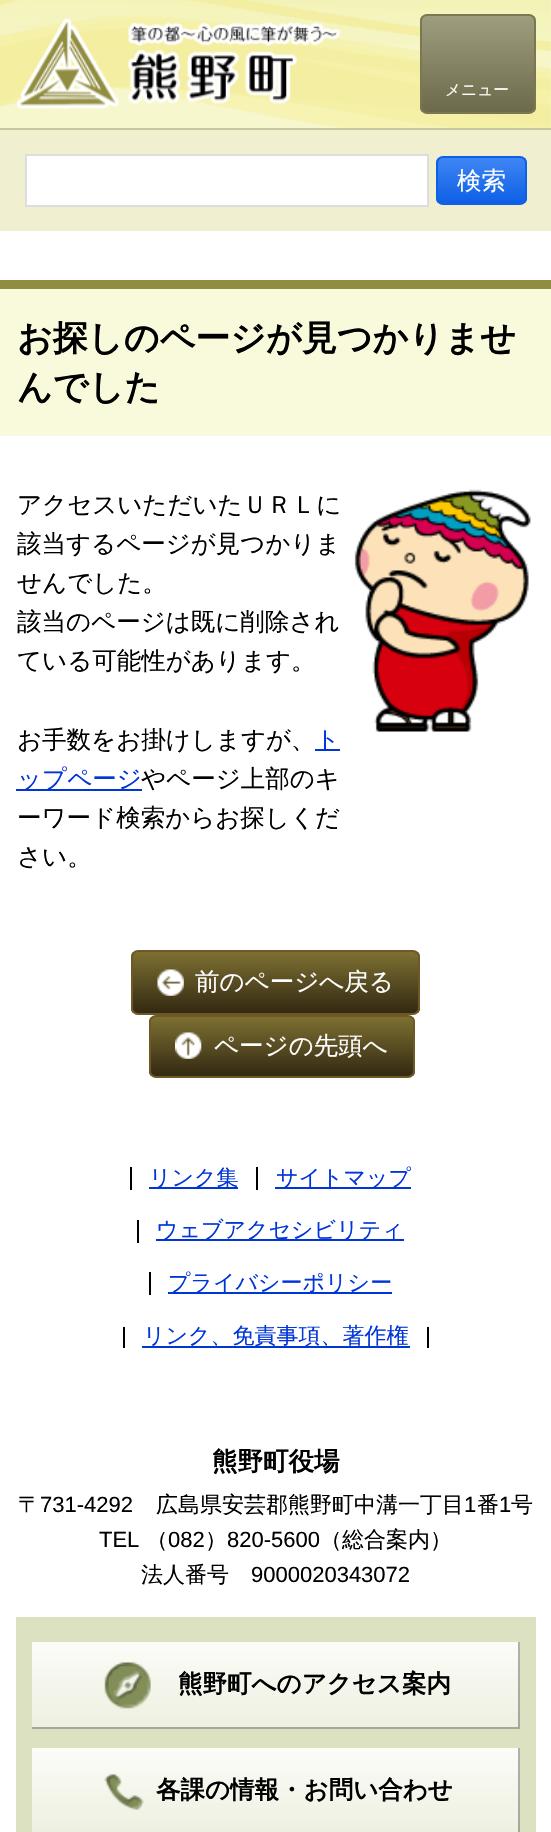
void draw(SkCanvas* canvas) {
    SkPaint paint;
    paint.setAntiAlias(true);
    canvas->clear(0xFFFFFFFF);
    paint.setColor(0xFFF7F7CD);
    canvas->drawRect(SkRect::MakeXYWH(0, 0, 551, 128), paint);
    canvas->drawImageRect(SkImages::DeferredFromEncodedData(SkData::MakeFromFileName("img1.png")), SkRect::MakeXYWH(0, 0, 551, 128), SkSamplingOptions());
    paint.setColor(0xFFC8C69F);
    canvas->drawRect(SkRect::MakeXYWH(0, 128, 551, 2), paint);
    canvas->drawImageRect(SkImages::DeferredFromEncodedData(SkData::MakeFromFileName("img2.png")), SkRect::MakeXYWH(16, 17, 325, 92), SkSamplingOptions());
    canvas->save();
    canvas->clipPath(SkPathBuilder().moveTo(427, 14).lineTo(529, 14).cubicTo(533, 14, 536, 17, 536, 21).lineTo(536, 107).cubicTo(536, 111, 533, 114, 529, 114).lineTo(427, 114).cubicTo(423, 114, 420, 111, 420, 107).lineTo(420, 21).cubicTo(420, 17, 423, 14, 427, 14).close().detach(), true);
    {
        const SkColor colors[] = {0xFF9E9D7D, 0xFF6C6A4A};
        const float stops[] = {0, 1};
        const SkPoint ends[] = {{478, 16}, {478, 112}};
        paint.setShader(SkGradientShader::MakeLinear(ends, colors, stops, 2, SkTileMode::kClamp));
        paint.setAlpha(255);
    }
    canvas->drawRect(SkRect::MakeXYWH(420, 16, 116, 96), paint);
    canvas->restore();
    paint.setStyle(SkPaint::kStroke_Style);
    paint.setStrokeWidth(2);
    paint.setShader(nullptr);
    paint.setColor(0xFF7A7853);
    canvas->drawRoundRect(SkRect::MakeXYWH(421, 15, 114, 98), 6, 6, paint);
    SkFont font1(fontMgr->matchFamilyStyle("WenQuanYi Zen Hei", SkFontStyle(500, SkFontStyle::kNormal_Width, SkFontStyle::kUpright_Slant)), 15.75f);
    font1.setSubpixel(true);
    paint.setStyle(SkPaint::kFill_Style);
    paint.setColor(0xFFFFFFFF);
    canvas->drawString("メニュー", 445, 95, font1, paint);
    paint.setColor(0xFFF0EFD0);
    canvas->drawRect(SkRect::MakeXYWH(0, 130, 551, 101), paint);
    paint.setColor(0xFFFFFFFF);
    canvas->drawRect(SkRect::MakeXYWH(26, 155, 402, 51), paint);
    paint.setStyle(SkPaint::kStroke_Style);
    paint.setColor(0xFFDDDDDD);
    canvas->drawRect(SkRect::MakeXYWH(26, 155, 402, 51), paint);
    canvas->save();
    canvas->clipPath(SkPathBuilder().moveTo(443, 156).lineTo(520, 156).cubicTo(524, 156, 527, 159, 527, 163).lineTo(527, 198).cubicTo(527, 202, 524, 205, 520, 205).lineTo(443, 205).cubicTo(439, 205, 436, 202, 436, 198).lineTo(436, 163).cubicTo(436, 159, 439, 156, 443, 156).close().detach(), true);
    paint.setStyle(SkPaint::kFill_Style);
    {
        const SkColor colors[] = {0xFF3F85F4, 0xFF0E60E6};
        const float stops[] = {0, 1};
        const SkPoint ends[] = {{481, 158}, {481, 203}};
        paint.setShader(SkGradientShader::MakeLinear(ends, colors, stops, 2, SkTileMode::kClamp));
        paint.setAlpha(255);
    }
    canvas->drawRect(SkRect::MakeXYWH(436, 158, 91, 45), paint);
    canvas->restore();
    paint.setStyle(SkPaint::kStroke_Style);
    paint.setShader(nullptr);
    paint.setColor(0xFF0E60E6);
    canvas->drawRoundRect(SkRect::MakeXYWH(437, 157, 89, 47), 6, 6, paint);
    SkFont font2(fontMgr->matchFamilyStyle("WenQuanYi Zen Hei", SkFontStyle(500, SkFontStyle::kNormal_Width, SkFontStyle::kUpright_Slant)), 24.5f);
    font2.setSubpixel(true);
    paint.setStyle(SkPaint::kFill_Style);
    paint.setColor(0xFFFFFFFF);
    canvas->drawString("検索", 457, 189, font2, paint);
    paint.setColor(0xFFF9F9DB);
    canvas->drawRect(SkRect::MakeXYWH(0, 289, 551, 147), paint);
    paint.setColor(0xFF918D40);
    canvas->drawRect(SkRect::MakeXYWH(0, 280, 551, 9), paint);
    SkFont font3(fontMgr->matchFamilyStyle("WenQuanYi Zen Hei", SkFontStyle::Bold()), 35);
    font3.setSubpixel(true);
    paint.setColor(0xFF000000);
    canvas->drawString("お探しのページが見つかりませ", 17, 350, font3, paint);
    canvas->drawString("んでした", 17, 399, font3, paint);
    canvas->drawString("アクセスいただいたＵＲＬに", 17, 513, font2, paint);
    canvas->drawString("該当するページが見つかりま", 17, 552, font2, paint);
    canvas->drawString("せんでした。", 17, 591, font2, paint);
    canvas->drawString("該当のページは既に削除され", 17, 630, font2, paint);
    canvas->drawString("ている可能性があります。", 17, 669, font2, paint);
    canvas->drawString("お手数をお掛けしますが、", 17, 748, font2, paint);
    paint.setColor(0xFF0035D8);
    canvas->drawRect(SkRect::MakeXYWH(315, 749, 25, 2), paint);
    canvas->drawString("ト", 315, 748, font2, paint);
    canvas->drawRect(SkRect::MakeXYWH(16, 789, 126, 2), paint);
    canvas->drawString("ップページ", 17, 787, font2, paint);
    paint.setColor(0xFF000000);
    canvas->drawString("やページ上部のキ", 141, 787, font2, paint);
    canvas->drawString("ーワード検索からお探しくだ", 17, 826, font2, paint);
    canvas->drawString("さい。", 17, 865, font2, paint);
    canvas->drawImageRect(SkImages::DeferredFromEncodedData(SkData::MakeFromFileName("img3.png")), SkRect::MakeXYWH(354, 489, 177, 243), SkSamplingOptions());
    canvas->save();
    canvas->clipPath(SkPathBuilder().moveTo(138, 950).lineTo(413, 950).cubicTo(417, 950, 420, 953, 420, 957).lineTo(420, 1008).cubicTo(420, 1012, 417, 1015, 413, 1015).lineTo(138, 1015).cubicTo(134, 1015, 131, 1012, 131, 1008).lineTo(131, 957).cubicTo(131, 953, 134, 950, 138, 950).close().detach(), true);
    {
        const SkColor colors[] = {0xFF7D7032, 0xFF332912};
        const float stops[] = {0, 1};
        const SkPoint ends[] = {{276, 952}, {276, 1013}};
        paint.setShader(SkGradientShader::MakeLinear(ends, colors, stops, 2, SkTileMode::kClamp));
        paint.setAlpha(255);
    }
    canvas->drawRect(SkRect::MakeXYWH(131, 952, 289, 61), paint);
    canvas->restore();
    paint.setStyle(SkPaint::kStroke_Style);
    paint.setShader(nullptr);
    paint.setColor(0xFF6D5826);
    canvas->drawRoundRect(SkRect::MakeXYWH(132, 951, 287, 63), 6, 6, paint);
    canvas->drawImageRect(SkImages::DeferredFromEncodedData(SkData::MakeFromFileName("img4.png")), SkRect::MakeXYWH(157, 969, 27, 27), SkSamplingOptions());
    paint.setStyle(SkPaint::kFill_Style);
    paint.setColor(0xFFFFFFFF);
    canvas->drawString("前のページへ戻る", 195, 990, font2, paint);
    canvas->save();
    canvas->clipPath(SkPathBuilder().moveTo(156, 1015).lineTo(408, 1015).cubicTo(412, 1015, 415, 1018, 415, 1022).lineTo(415, 1071).cubicTo(415, 1075, 412, 1078, 408, 1078).lineTo(156, 1078).cubicTo(152, 1078, 149, 1075, 149, 1071).lineTo(149, 1022).cubicTo(149, 1018, 152, 1015, 156, 1015).close().detach(), true);
    {
        const SkColor colors[] = {0xFF7D7032, 0xFF332912};
        const float stops[] = {0, 1};
        const SkPoint ends[] = {{282, 1017}, {282, 1076}};
        paint.setShader(SkGradientShader::MakeLinear(ends, colors, stops, 2, SkTileMode::kClamp));
        paint.setAlpha(255);
    }
    canvas->drawRect(SkRect::MakeXYWH(149, 1017, 266, 59), paint);
    canvas->restore();
    paint.setStyle(SkPaint::kStroke_Style);
    paint.setShader(nullptr);
    paint.setColor(0xFF6D5826);
    canvas->drawRoundRect(SkRect::MakeXYWH(150, 1016, 264, 61), 6, 6, paint);
    canvas->drawImageRect(SkImages::DeferredFromEncodedData(SkData::MakeFromFileName("img5.png")), SkRect::MakeXYWH(175, 1032, 27, 27), SkSamplingOptions());
    paint.setStyle(SkPaint::kFill_Style);
    paint.setColor(0xFFFFFFFF);
    canvas->drawString("ページの先頭へ", 214, 1054, font2, paint);
    paint.setColor(0xFF000000);
    canvas->drawRect(SkRect::MakeXYWH(130, 1167, 2, 23), paint);
    paint.setColor(0xFF0035D8);
    canvas->drawRect(SkRect::MakeXYWH(149, 1187, 89, 2), paint);
    SkFont font4(fontMgr->matchFamilyStyle("WenQuanYi Zen Hei", SkFontStyle(500, SkFontStyle::kNormal_Width, SkFontStyle::kUpright_Slant)), 22);
    font4.setSubpixel(true);
    canvas->drawString("リンク集", 149, 1185, font4, paint);
    paint.setColor(0xFF000000);
    canvas->drawRect(SkRect::MakeXYWH(256, 1167, 2, 23), paint);
    paint.setColor(0xFF0035D8);
    canvas->drawRect(SkRect::MakeXYWH(275, 1187, 136, 2), paint);
    canvas->drawString("サイトマップ", 276, 1185, font4, paint);
    paint.setColor(0xFF000000);
    canvas->drawRect(SkRect::MakeXYWH(137, 1220, 2, 23), paint);
    paint.setColor(0xFF0035D8);
    canvas->drawRect(SkRect::MakeXYWH(156, 1239, 248, 2), paint);
    canvas->drawString("ウェブアクセシビリティ", 156, 1237, font4, paint);
    paint.setColor(0xFF000000);
    canvas->drawRect(SkRect::MakeXYWH(149, 1272, 2, 23), paint);
    paint.setColor(0xFF0035D8);
    canvas->drawRect(SkRect::MakeXYWH(168, 1292, 224, 2), paint);
    canvas->drawString("プライバシーポリシー", 168, 1290, font4, paint);
    paint.setColor(0xFF000000);
    canvas->drawRect(SkRect::MakeXYWH(427, 1327, 2, 21), paint);
    canvas->drawRect(SkRect::MakeXYWH(123, 1327, 2, 21), paint);
    paint.setColor(0xFF0035D8);
    canvas->drawRect(SkRect::MakeXYWH(142, 1346, 268, 2), paint);
    canvas->drawString("リンク、免責事項、著作権", 143, 1343, font4, paint);
    SkFont font5(fontMgr->matchFamilyStyle("WenQuanYi Zen Hei", SkFontStyle::Bold()), 25.5f);
    font5.setSubpixel(true);
    paint.setColor(0xFF000000);
    canvas->drawString("熊野町役場", 212, 1470, font5, paint);
    canvas->drawString("〒", 18, 1512, font4, paint);
    SkFont font6(fontMgr->matchFamilyStyle("Liberation Sans", SkFontStyle::Normal()), 22);
    font6.setSubpixel(true);
    canvas->drawString("731-4292", 40, 1512, font6, paint);
    canvas->drawString("広島県安芸郡熊野町中溝一丁目", 156, 1512, font4, paint);
    canvas->drawString("1", 464, 1512, font6, paint);
    canvas->drawString("番", 477, 1512, font4, paint);
    canvas->drawString("1", 499, 1512, font6, paint);
    canvas->drawString("号", 511, 1512, font4, paint);
    canvas->drawString("TEL", 99, 1547, font6, paint);
    canvas->drawString("（", 146, 1547, font4, paint);
    canvas->drawString("082", 168, 1547, font6, paint);
    canvas->drawString("）", 205, 1547, font4, paint);
    canvas->drawString("820-5600", 227, 1547, font6, paint);
    canvas->drawString("（総合案内）", 320, 1547, font4, paint);
    canvas->drawString("法人番号", 141, 1582, font4, paint);
    canvas->drawString("9000020343072", 251, 1582, font6, paint);
    paint.setColor(0xFFDBE1C1);
    canvas->drawRect(SkRect::MakeXYWH(16, 1617, 520, 215), paint);
    {
        const SkColor colors[] = {0xFFFBFCF8, 0xFFEDF0E0};
        const float stops[] = {0, 1};
        const SkPoint ends[] = {{276, 1642}, {276, 1729}};
        paint.setShader(SkGradientShader::MakeLinear(ends, colors, stops, 2, SkTileMode::kClamp));
        paint.setAlpha(255);
    }
    canvas->drawRect(SkRect::MakeXYWH(32, 1642, 488, 87), paint);
    canvas->save();
    canvas->clipRect(SkRect::MakeXYWH(32, 1642, 488, 87));
    paint.setShader(nullptr);
    paint.setColor(0x4D000000);
    canvas->drawPath(SkPathBuilder(SkPathFillType::kEvenOdd).moveTo(-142, 1468).lineTo(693, 1468).lineTo(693, 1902).lineTo(-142, 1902).close().moveTo(30, 1640).lineTo(518, 1640).lineTo(518, 1727).lineTo(30, 1727).close().detach(), paint);
    canvas->restore();
    canvas->drawImageRect(SkImages::DeferredFromEncodedData(SkData::MakeFromFileName("img6.png")), SkRect::MakeXYWH(104, 1662, 47, 47), SkSamplingOptions());
    SkFont font7(fontMgr->matchFamilyStyle("WenQuanYi Zen Hei", SkFontStyle::Bold()), 24.5f);
    font7.setSubpixel(true);
    paint.setColor(0xFF000000);
    canvas->drawString("熊野町へのアクセス案内", 178, 1692, font7, paint);
    {
        const SkColor colors[] = {0xFFFBFCF8, 0xFFEDF0E0};
        const float stops[] = {0, 1};
        const SkPoint ends[] = {{276, 1748}, {276, 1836}};
        paint.setShader(SkGradientShader::MakeLinear(ends, colors, stops, 2, SkTileMode::kClamp));
        paint.setAlpha(255);
    }
    canvas->drawRect(SkRect::MakeXYWH(32, 1748, 488, 84), paint);
    canvas->save();
    canvas->clipRect(SkRect::MakeXYWH(32, 1748, 488, 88));
    paint.setShader(nullptr);
    paint.setColor(0x4D000000);
    canvas->drawPath(SkPathBuilder(SkPathFillType::kEvenOdd).moveTo(-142, 1575).lineTo(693, 1575).lineTo(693, 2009).lineTo(-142, 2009).close().moveTo(30, 1746).lineTo(518, 1746).lineTo(518, 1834).lineTo(30, 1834).close().detach(), paint);
    canvas->restore();
    canvas->drawImageRect(SkImages::DeferredFromEncodedData(SkData::MakeFromFileName("img7.png")), SkRect::MakeXYWH(104, 1774, 40, 36), SkSamplingOptions());
    paint.setColor(0xFF000000);
    canvas->drawString("各課の情報・お問い合わせ", 156, 1798, font7, paint);
}
